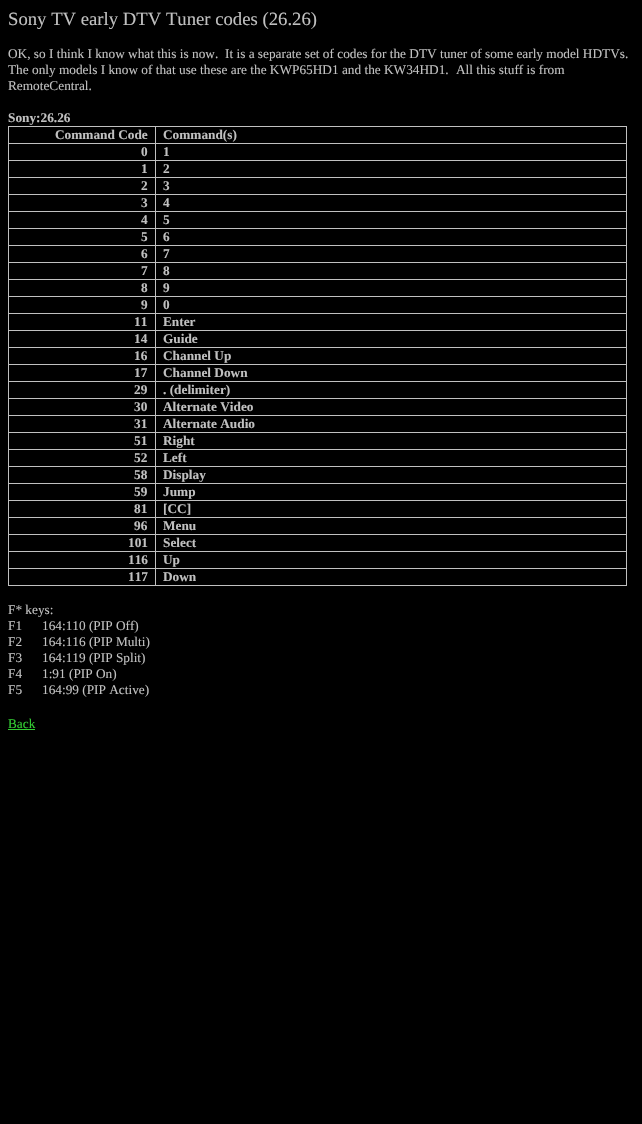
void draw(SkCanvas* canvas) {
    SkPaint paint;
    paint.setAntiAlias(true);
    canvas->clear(0xFF000000);
    SkFont font1(fontMgr->matchFamilyStyle("Liberation Serif", SkFontStyle::Normal()), 18.7f);
    font1.setSubpixel(true);
    paint.setColor(0xFFC0C0C0);
    canvas->drawString("Sony TV early DTV Tuner codes (26.26)", 8, 25, font1, paint);
    SkFont font2(fontMgr->matchFamilyStyle("Liberation Serif", SkFontStyle::Normal()), 13.3f);
    font2.setSubpixel(true);
    canvas->drawString("OK, so I think I know what this is now.", 8, 58, font2, paint);
    canvas->drawString("It is a separate set of codes for the DTV tuner of some early model HDTVs.", 225, 58, font2, paint);
    canvas->drawString("The only models I know of that use these are the KWP65HD1 and the KW34HD1.", 8, 74, font2, paint);
    canvas->drawString("All this stuff is from", 456, 74, font2, paint);
    canvas->drawString("RemoteCentral.", 8, 90, font2, paint);
    SkFont font3(fontMgr->matchFamilyStyle("Liberation Serif", SkFontStyle::Bold()), 13.3f);
    font3.setSubpixel(true);
    canvas->drawString("Sony:26.26", 8, 122, font3, paint);
    canvas->drawRect(SkRect::MakeXYWH(8, 126, 619, 1), paint);
    canvas->drawRect(SkRect::MakeXYWH(626, 143, 1, 443), paint);
    canvas->drawRect(SkRect::MakeXYWH(626, 126, 1, 18), paint);
    canvas->drawRect(SkRect::MakeXYWH(155, 585, 472, 1), paint);
    canvas->drawRect(SkRect::MakeXYWH(155, 568, 1, 18), paint);
    canvas->drawRect(SkRect::MakeXYWH(155, 568, 472, 1), paint);
    canvas->drawRect(SkRect::MakeXYWH(155, 551, 1, 18), paint);
    canvas->drawRect(SkRect::MakeXYWH(155, 551, 472, 1), paint);
    canvas->drawRect(SkRect::MakeXYWH(155, 534, 1, 18), paint);
    canvas->drawRect(SkRect::MakeXYWH(155, 534, 472, 1), paint);
    canvas->drawRect(SkRect::MakeXYWH(155, 517, 1, 18), paint);
    canvas->drawRect(SkRect::MakeXYWH(155, 517, 472, 1), paint);
    canvas->drawRect(SkRect::MakeXYWH(155, 500, 1, 18), paint);
    canvas->drawRect(SkRect::MakeXYWH(155, 500, 472, 1), paint);
    canvas->drawRect(SkRect::MakeXYWH(155, 483, 1, 18), paint);
    canvas->drawRect(SkRect::MakeXYWH(155, 483, 472, 1), paint);
    canvas->drawRect(SkRect::MakeXYWH(155, 466, 1, 18), paint);
    canvas->drawRect(SkRect::MakeXYWH(155, 466, 472, 1), paint);
    canvas->drawRect(SkRect::MakeXYWH(155, 449, 1, 18), paint);
    canvas->drawRect(SkRect::MakeXYWH(155, 449, 472, 1), paint);
    canvas->drawRect(SkRect::MakeXYWH(155, 432, 1, 18), paint);
    canvas->drawRect(SkRect::MakeXYWH(155, 432, 472, 1), paint);
    canvas->drawRect(SkRect::MakeXYWH(155, 415, 1, 18), paint);
    canvas->drawRect(SkRect::MakeXYWH(155, 415, 472, 1), paint);
    canvas->drawRect(SkRect::MakeXYWH(155, 398, 1, 18), paint);
    canvas->drawRect(SkRect::MakeXYWH(155, 398, 472, 1), paint);
    canvas->drawRect(SkRect::MakeXYWH(155, 381, 1, 18), paint);
    canvas->drawRect(SkRect::MakeXYWH(155, 381, 472, 1), paint);
    canvas->drawRect(SkRect::MakeXYWH(155, 364, 1, 18), paint);
    canvas->drawRect(SkRect::MakeXYWH(155, 364, 472, 1), paint);
    canvas->drawRect(SkRect::MakeXYWH(155, 347, 1, 18), paint);
    canvas->drawRect(SkRect::MakeXYWH(155, 347, 472, 1), paint);
    canvas->drawRect(SkRect::MakeXYWH(155, 330, 1, 18), paint);
    canvas->drawRect(SkRect::MakeXYWH(155, 330, 472, 1), paint);
    canvas->drawRect(SkRect::MakeXYWH(155, 313, 1, 18), paint);
    canvas->drawRect(SkRect::MakeXYWH(155, 313, 472, 1), paint);
    canvas->drawRect(SkRect::MakeXYWH(155, 296, 1, 18), paint);
    canvas->drawRect(SkRect::MakeXYWH(155, 296, 472, 1), paint);
    canvas->drawRect(SkRect::MakeXYWH(155, 279, 1, 18), paint);
    canvas->drawRect(SkRect::MakeXYWH(155, 279, 472, 1), paint);
    canvas->drawRect(SkRect::MakeXYWH(155, 262, 1, 18), paint);
    canvas->drawRect(SkRect::MakeXYWH(155, 262, 472, 1), paint);
    canvas->drawRect(SkRect::MakeXYWH(155, 245, 1, 18), paint);
    canvas->drawRect(SkRect::MakeXYWH(155, 245, 472, 1), paint);
    canvas->drawRect(SkRect::MakeXYWH(155, 228, 1, 18), paint);
    canvas->drawRect(SkRect::MakeXYWH(155, 228, 472, 1), paint);
    canvas->drawRect(SkRect::MakeXYWH(155, 211, 1, 18), paint);
    canvas->drawRect(SkRect::MakeXYWH(155, 211, 472, 1), paint);
    canvas->drawRect(SkRect::MakeXYWH(155, 194, 1, 18), paint);
    canvas->drawRect(SkRect::MakeXYWH(155, 194, 472, 1), paint);
    canvas->drawRect(SkRect::MakeXYWH(155, 177, 1, 18), paint);
    canvas->drawRect(SkRect::MakeXYWH(155, 177, 472, 1), paint);
    canvas->drawRect(SkRect::MakeXYWH(155, 160, 1, 18), paint);
    canvas->drawRect(SkRect::MakeXYWH(155, 160, 472, 1), paint);
    canvas->drawRect(SkRect::MakeXYWH(155, 143, 1, 18), paint);
    canvas->drawRect(SkRect::MakeXYWH(155, 143, 472, 1), paint);
    canvas->drawRect(SkRect::MakeXYWH(155, 126, 1, 18), paint);
    canvas->drawRect(SkRect::MakeXYWH(8, 585, 148, 1), paint);
    canvas->drawRect(SkRect::MakeXYWH(8, 568, 1, 18), paint);
    canvas->drawRect(SkRect::MakeXYWH(8, 568, 148, 1), paint);
    canvas->drawRect(SkRect::MakeXYWH(8, 551, 1, 18), paint);
    canvas->drawRect(SkRect::MakeXYWH(8, 551, 148, 1), paint);
    canvas->drawRect(SkRect::MakeXYWH(8, 534, 1, 18), paint);
    canvas->drawRect(SkRect::MakeXYWH(8, 534, 148, 1), paint);
    canvas->drawRect(SkRect::MakeXYWH(8, 517, 1, 18), paint);
    canvas->drawRect(SkRect::MakeXYWH(8, 517, 148, 1), paint);
    canvas->drawRect(SkRect::MakeXYWH(8, 500, 1, 18), paint);
    canvas->drawRect(SkRect::MakeXYWH(8, 500, 148, 1), paint);
    canvas->drawRect(SkRect::MakeXYWH(8, 483, 1, 18), paint);
    canvas->drawRect(SkRect::MakeXYWH(8, 483, 148, 1), paint);
    canvas->drawRect(SkRect::MakeXYWH(8, 466, 1, 18), paint);
    canvas->drawRect(SkRect::MakeXYWH(8, 466, 148, 1), paint);
    canvas->drawRect(SkRect::MakeXYWH(8, 449, 1, 18), paint);
    canvas->drawRect(SkRect::MakeXYWH(8, 449, 148, 1), paint);
    canvas->drawRect(SkRect::MakeXYWH(8, 432, 1, 18), paint);
    canvas->drawRect(SkRect::MakeXYWH(8, 432, 148, 1), paint);
    canvas->drawRect(SkRect::MakeXYWH(8, 415, 1, 18), paint);
    canvas->drawRect(SkRect::MakeXYWH(8, 415, 148, 1), paint);
    canvas->drawRect(SkRect::MakeXYWH(8, 398, 1, 18), paint);
    canvas->drawRect(SkRect::MakeXYWH(8, 398, 148, 1), paint);
    canvas->drawRect(SkRect::MakeXYWH(8, 381, 1, 18), paint);
    canvas->drawRect(SkRect::MakeXYWH(8, 381, 148, 1), paint);
    canvas->drawRect(SkRect::MakeXYWH(8, 364, 1, 18), paint);
    canvas->drawRect(SkRect::MakeXYWH(8, 364, 148, 1), paint);
    canvas->drawRect(SkRect::MakeXYWH(8, 347, 1, 18), paint);
    canvas->drawRect(SkRect::MakeXYWH(8, 347, 148, 1), paint);
    canvas->drawRect(SkRect::MakeXYWH(8, 330, 1, 18), paint);
    canvas->drawRect(SkRect::MakeXYWH(8, 330, 148, 1), paint);
    canvas->drawRect(SkRect::MakeXYWH(8, 313, 1, 18), paint);
    canvas->drawRect(SkRect::MakeXYWH(8, 313, 148, 1), paint);
    canvas->drawRect(SkRect::MakeXYWH(8, 296, 1, 18), paint);
    canvas->drawRect(SkRect::MakeXYWH(8, 296, 148, 1), paint);
    canvas->drawRect(SkRect::MakeXYWH(8, 279, 1, 18), paint);
    canvas->drawRect(SkRect::MakeXYWH(8, 279, 148, 1), paint);
    canvas->drawRect(SkRect::MakeXYWH(8, 262, 1, 18), paint);
    canvas->drawRect(SkRect::MakeXYWH(8, 262, 148, 1), paint);
    canvas->drawRect(SkRect::MakeXYWH(8, 245, 1, 18), paint);
    canvas->drawRect(SkRect::MakeXYWH(8, 245, 148, 1), paint);
    canvas->drawRect(SkRect::MakeXYWH(8, 228, 1, 18), paint);
    canvas->drawRect(SkRect::MakeXYWH(8, 228, 148, 1), paint);
    canvas->drawRect(SkRect::MakeXYWH(8, 211, 1, 18), paint);
    canvas->drawRect(SkRect::MakeXYWH(8, 211, 148, 1), paint);
    canvas->drawRect(SkRect::MakeXYWH(8, 194, 1, 18), paint);
    canvas->drawRect(SkRect::MakeXYWH(8, 194, 148, 1), paint);
    canvas->drawRect(SkRect::MakeXYWH(8, 177, 1, 18), paint);
    canvas->drawRect(SkRect::MakeXYWH(8, 177, 148, 1), paint);
    canvas->drawRect(SkRect::MakeXYWH(8, 160, 1, 18), paint);
    canvas->drawRect(SkRect::MakeXYWH(8, 160, 148, 1), paint);
    canvas->drawRect(SkRect::MakeXYWH(8, 143, 1, 18), paint);
    canvas->drawRect(SkRect::MakeXYWH(8, 143, 148, 1), paint);
    canvas->drawRect(SkRect::MakeXYWH(8, 126, 1, 18), paint);
    canvas->drawString("Command Code", 55, 139, font3, paint);
    canvas->drawString("Command(s)", 163, 139, font3, paint);
    canvas->drawString("0", 141, 156, font3, paint);
    canvas->drawString("1", 163, 156, font3, paint);
    canvas->drawString("1", 141, 173, font3, paint);
    canvas->drawString("2", 163, 173, font3, paint);
    canvas->drawString("2", 141, 190, font3, paint);
    canvas->drawString("3", 163, 190, font3, paint);
    canvas->drawString("3", 141, 207, font3, paint);
    canvas->drawString("4", 163, 207, font3, paint);
    canvas->drawString("4", 141, 224, font3, paint);
    canvas->drawString("5", 163, 224, font3, paint);
    canvas->drawString("5", 141, 241, font3, paint);
    canvas->drawString("6", 163, 241, font3, paint);
    canvas->drawString("6", 141, 258, font3, paint);
    canvas->drawString("7", 163, 258, font3, paint);
    canvas->drawString("7", 141, 275, font3, paint);
    canvas->drawString("8", 163, 275, font3, paint);
    canvas->drawString("8", 141, 292, font3, paint);
    canvas->drawString("9", 163, 292, font3, paint);
    canvas->drawString("9", 141, 309, font3, paint);
    canvas->drawString("0", 163, 309, font3, paint);
    canvas->drawString("11", 134, 326, font3, paint);
    canvas->drawString("Enter", 163, 326, font3, paint);
    canvas->drawString("14", 134, 343, font3, paint);
    canvas->drawString("Guide", 163, 343, font3, paint);
    canvas->drawString("16", 134, 360, font3, paint);
    canvas->drawString("Channel Up", 163, 360, font3, paint);
    canvas->drawString("17", 134, 377, font3, paint);
    canvas->drawString("Channel Down", 163, 377, font3, paint);
    canvas->drawString("29", 134, 394, font3, paint);
    canvas->drawString(". (delimiter)", 163, 394, font3, paint);
    canvas->drawString("30", 134, 411, font3, paint);
    canvas->drawString("Alternate Video", 163, 411, font3, paint);
    canvas->drawString("31", 134, 428, font3, paint);
    canvas->drawString("Alternate Audio", 163, 428, font3, paint);
    canvas->drawString("51", 134, 445, font3, paint);
    canvas->drawString("Right", 163, 445, font3, paint);
    canvas->drawString("52", 134, 462, font3, paint);
    canvas->drawString("Left", 163, 462, font3, paint);
    canvas->drawString("58", 134, 479, font3, paint);
    canvas->drawString("Display", 163, 479, font3, paint);
    canvas->drawString("59", 134, 496, font3, paint);
    canvas->drawString("Jump", 163, 496, font3, paint);
    canvas->drawString("81", 134, 513, font3, paint);
    canvas->drawString("[CC]", 163, 513, font3, paint);
    canvas->drawString("96", 134, 530, font3, paint);
    canvas->drawString("Menu", 163, 530, font3, paint);
    canvas->drawString("101", 128, 547, font3, paint);
    canvas->drawString("Select", 163, 547, font3, paint);
    canvas->drawString("116", 128, 564, font3, paint);
    canvas->drawString("Up", 163, 564, font3, paint);
    canvas->drawString("117", 128, 581, font3, paint);
    canvas->drawString("Down", 163, 581, font3, paint);
    canvas->drawString("F* keys:", 8, 614, font2, paint);
    canvas->drawString("F1", 8, 630, font2, paint);
    canvas->drawString("164:110 (PIP Off)", 42, 630, font2, paint);
    canvas->drawString("F2", 8, 646, font2, paint);
    canvas->drawString("164:116 (PIP Multi)", 42, 646, font2, paint);
    canvas->drawString("F3", 8, 662, font2, paint);
    canvas->drawString("164:119 (PIP Split)", 42, 662, font2, paint);
    canvas->drawString("F4", 8, 678, font2, paint);
    canvas->drawString("1:91 (PIP On)", 42, 678, font2, paint);
    canvas->drawString("F5", 8, 694, font2, paint);
    canvas->drawString("164:99 (PIP Active)", 42, 694, font2, paint);
    paint.setColor(0xFF33CC33);
    canvas->drawString("Back", 8, 728, font2, paint);
    canvas->drawRect(SkRect::MakeXYWH(8, 729, 27, 1), paint);
}
